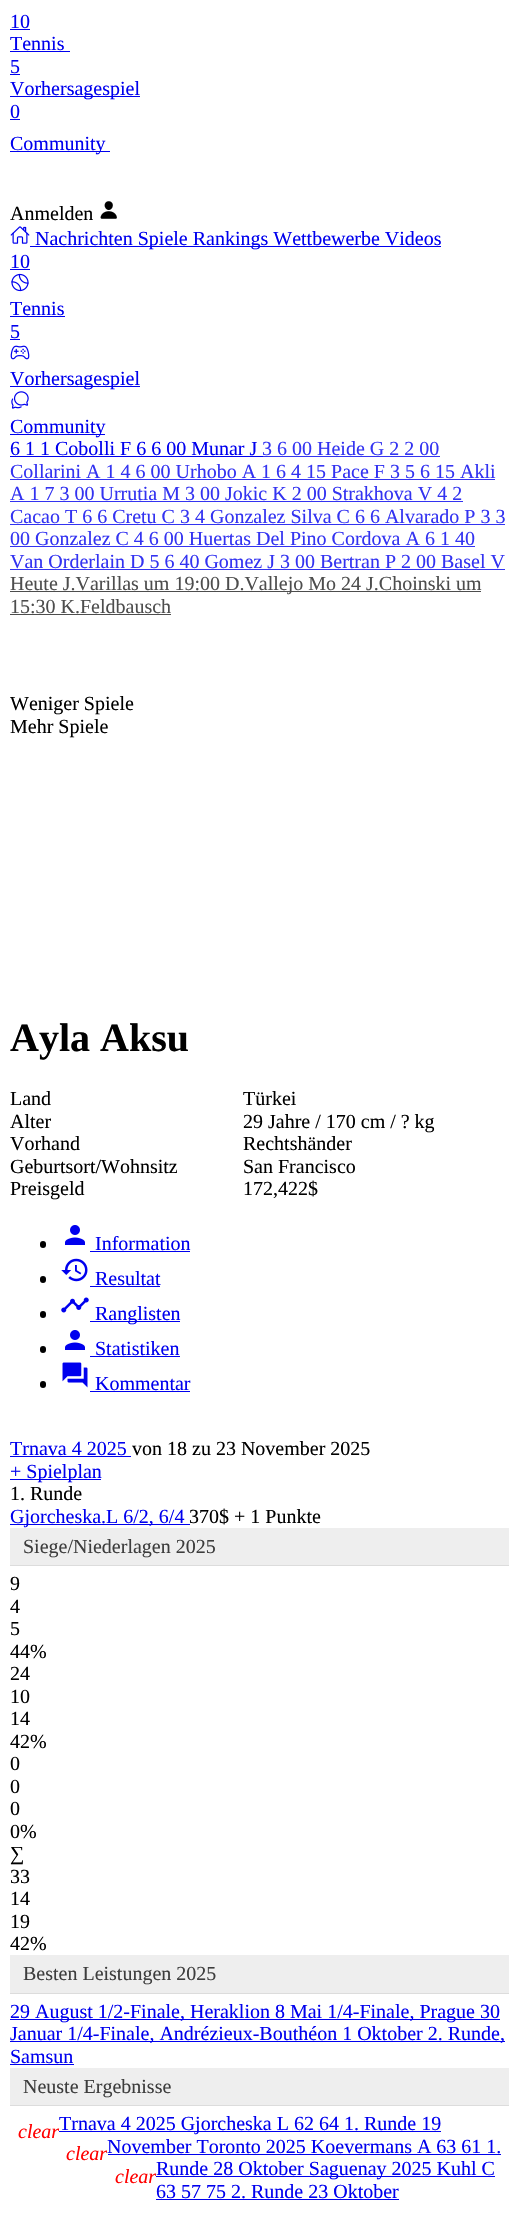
void draw(SkCanvas* canvas) {
    SkPaint paint;
    paint.setAntiAlias(true);
    canvas->clear(0xFFFFFFFF);
    SkFont font1(fontMgr->matchFamilyStyle("Liberation Serif", SkFontStyle::Normal()), 20);
    font1.setSubpixel(true);
    paint.setColor(0xFF0000EE);
    canvas->drawString("10", 10, 28, font1, paint);
    canvas->drawRect(SkRect::MakeXYWH(10, 29, 20, 1), paint);
    canvas->drawString("Tennis", 10, 50, font1, paint);
    canvas->drawRect(SkRect::MakeXYWH(10, 51, 60, 1), paint);
    canvas->drawString("5", 10, 73, font1, paint);
    canvas->drawRect(SkRect::MakeXYWH(10, 74, 10, 1), paint);
    canvas->drawRect(SkRect::MakeXYWH(10, 96, 130, 1), paint);
    canvas->drawString("Vorhersagespiel", 10, 95, font1, paint);
    canvas->drawString("0", 10, 118, font1, paint);
    canvas->drawRect(SkRect::MakeXYWH(10, 119, 10, 1), paint);
    canvas->drawRect(SkRect::MakeXYWH(10, 151, 100, 1), paint);
    canvas->drawString("Community", 10, 150, font1, paint);
    paint.setColor(0xFF000000);
    canvas->drawString("Anmelden", 10, 220, font1, paint);
    canvas->drawImageRect(SkImages::DeferredFromEncodedData(SkData::MakeFromFileName("img1.png")), SkRect::MakeXYWH(100, 201, 17, 18), SkSamplingOptions());
    canvas->drawImageRect(SkImages::DeferredFromEncodedData(SkData::MakeFromFileName("img2.png")), SkRect::MakeXYWH(10, 226, 20, 18), SkSamplingOptions());
    paint.setColor(0xFF0000EE);
    canvas->drawRect(SkRect::MakeXYWH(30, 246, 411, 1), paint);
    canvas->drawString("Nachrichten Spiele Rankings Wettbewerbe Videos", 35, 245, font1, paint);
    canvas->drawString("10", 10, 268, font1, paint);
    canvas->drawRect(SkRect::MakeXYWH(10, 269, 20, 1), paint);
    canvas->drawImageRect(SkImages::DeferredFromEncodedData(SkData::MakeFromFileName("img3.png")), SkRect::MakeXYWH(11, 273, 18, 19), SkSamplingOptions());
    canvas->drawString("Tennis", 10, 315, font1, paint);
    canvas->drawRect(SkRect::MakeXYWH(10, 316, 55, 1), paint);
    canvas->drawString("5", 10, 338, font1, paint);
    canvas->drawRect(SkRect::MakeXYWH(10, 339, 10, 1), paint);
    canvas->drawImageRect(SkImages::DeferredFromEncodedData(SkData::MakeFromFileName("img4.png")), SkRect::MakeXYWH(10, 345, 20, 15), SkSamplingOptions());
    canvas->drawRect(SkRect::MakeXYWH(10, 386, 130, 1), paint);
    canvas->drawString("Vorhersagespiel", 10, 385, font1, paint);
    canvas->drawImageRect(SkImages::DeferredFromEncodedData(SkData::MakeFromFileName("img5.png")), SkRect::MakeXYWH(11, 391, 18, 18), SkSamplingOptions());
    canvas->drawRect(SkRect::MakeXYWH(10, 434, 95, 1), paint);
    canvas->drawString("Community", 10, 433, font1, paint);
    canvas->drawString("6 1 1 Cobolli F 6 6 00 Munar J", 10, 455, font1, paint);
    canvas->drawRect(SkRect::MakeXYWH(10, 456, 253, 1), paint);
    paint.setColor(0xFF3333F1);
    canvas->drawString("3 6 00 Heide G 2 2 00", 262, 455, font1, paint);
    canvas->drawRect(SkRect::MakeXYWH(263, 456, 177, 1), paint);
    canvas->drawString("Collarini A 1 4 6 00 Urhobo A 1 6 4 15 Pace F 3 5 6 15 Akli", 10, 478, font1, paint);
    canvas->drawRect(SkRect::MakeXYWH(10, 479, 485, 1), paint);
    canvas->drawString("A 1 7 3 00 Urrutia M 3 00 Jokic K 2 00 Strakhova V 4 2", 10, 500, font1, paint);
    canvas->drawRect(SkRect::MakeXYWH(10, 501, 453, 1), paint);
    canvas->drawString("Cacao T 6 6 Cretu C 3 4 Gonzalez Silva C 6 6 Alvarado P 3 3", 10, 523, font1, paint);
    canvas->drawRect(SkRect::MakeXYWH(10, 524, 495, 1), paint);
    canvas->drawString("00 Gonzalez C 4 6 00 Huertas Del Pino Cordova A 6 1 40", 10, 545, font1, paint);
    canvas->drawRect(SkRect::MakeXYWH(10, 546, 465, 1), paint);
    canvas->drawString("Van Orderlain D 5 6 40 Gomez J 3 00 Bertran P 2 00 Basel V", 10, 568, font1, paint);
    canvas->drawRect(SkRect::MakeXYWH(10, 569, 495, 1), paint);
    paint.setColor(0xFF4D4D4D);
    canvas->drawRect(SkRect::MakeXYWH(10, 591, 471, 1), paint);
    canvas->drawString("Heute J.Varillas um 19:00 D.Vallejo Mo 24 J.Choinski um", 10, 590, font1, paint);
    canvas->drawString("15:30 K.Feldbausch", 10, 613, font1, paint);
    canvas->drawRect(SkRect::MakeXYWH(10, 614, 161, 1), paint);
    paint.setColor(0xFF000000);
    canvas->drawString("Weniger Spiele", 10, 710, font1, paint);
    canvas->drawString("Mehr Spiele", 10, 733, font1, paint);
    SkFont font2(fontMgr->matchFamilyStyle("Liberation Serif", SkFontStyle::Bold()), 40);
    font2.setSubpixel(true);
    canvas->drawString("Ayla Aksu", 10, 1051, font2, paint);
    canvas->drawString("Land", 10, 1105, font1, paint);
    canvas->drawString("Türkei", 243, 1105, font1, paint);
    canvas->drawString("Alter", 10, 1128, font1, paint);
    canvas->drawString("29 Jahre / 170 cm / ? kg", 243, 1128, font1, paint);
    canvas->drawString("Vorhand", 10, 1150, font1, paint);
    canvas->drawString("Rechtshänder", 243, 1150, font1, paint);
    canvas->drawString("Geburtsort/Wohnsitz", 10, 1173, font1, paint);
    canvas->drawString("San Francisco", 243, 1173, font1, paint);
    canvas->drawString("Preisgeld", 10, 1195, font1, paint);
    canvas->drawString("172,422$", 243, 1195, font1, paint);
    canvas->drawRoundRect(SkRect::MakeXYWH(40, 1241, 6, 7), 3, 3, paint);
    canvas->drawImageRect(SkImages::DeferredFromEncodedData(SkData::MakeFromFileName("img6.png")), SkRect::MakeXYWH(65, 1225, 20, 20), SkSamplingOptions());
    paint.setColor(0xFF0000EE);
    canvas->drawString("Information", 95, 1250, font1, paint);
    canvas->drawRect(SkRect::MakeXYWH(90, 1251, 100, 1), paint);
    paint.setColor(0xFF000000);
    canvas->drawRoundRect(SkRect::MakeXYWH(40, 1276, 6, 7), 3, 3, paint);
    canvas->drawImageRect(SkImages::DeferredFromEncodedData(SkData::MakeFromFileName("img7.png")), SkRect::MakeXYWH(61, 1258, 27, 24), SkSamplingOptions());
    paint.setColor(0xFF0000EE);
    canvas->drawString("Resultat", 95, 1285, font1, paint);
    canvas->drawRect(SkRect::MakeXYWH(90, 1286, 70, 1), paint);
    paint.setColor(0xFF000000);
    canvas->drawRoundRect(SkRect::MakeXYWH(40, 1311, 6, 7), 3, 3, paint);
    canvas->drawImageRect(SkImages::DeferredFromEncodedData(SkData::MakeFromFileName("img8.png")), SkRect::MakeXYWH(61, 1297, 28, 16), SkSamplingOptions());
    paint.setColor(0xFF0000EE);
    canvas->drawRect(SkRect::MakeXYWH(90, 1321, 90, 1), paint);
    canvas->drawString("Ranglisten", 95, 1320, font1, paint);
    paint.setColor(0xFF000000);
    canvas->drawRoundRect(SkRect::MakeXYWH(40, 1346, 6, 7), 3, 3, paint);
    canvas->drawImageRect(SkImages::DeferredFromEncodedData(SkData::MakeFromFileName("img6.png")), SkRect::MakeXYWH(65, 1330, 20, 20), SkSamplingOptions());
    paint.setColor(0xFF0000EE);
    canvas->drawString("Statistiken", 95, 1355, font1, paint);
    canvas->drawRect(SkRect::MakeXYWH(90, 1356, 90, 1), paint);
    paint.setColor(0xFF000000);
    canvas->drawRoundRect(SkRect::MakeXYWH(40, 1381, 6, 7), 3, 3, paint);
    canvas->drawImageRect(SkImages::DeferredFromEncodedData(SkData::MakeFromFileName("img9.png")), SkRect::MakeXYWH(62, 1362, 26, 26), SkSamplingOptions());
    paint.setColor(0xFF0000EE);
    canvas->drawString("Kommentar", 95, 1390, font1, paint);
    canvas->drawRect(SkRect::MakeXYWH(90, 1391, 100, 1), paint);
    canvas->drawString("Trnava 4 2025", 10, 1455, font1, paint);
    canvas->drawRect(SkRect::MakeXYWH(10, 1456, 121, 1), paint);
    paint.setColor(0xFF000000);
    canvas->drawString("von 18 zu 23 November 2025", 132, 1455, font1, paint);
    paint.setColor(0xFF0000EE);
    canvas->drawRect(SkRect::MakeXYWH(10, 1479, 91, 1), paint);
    canvas->drawString("+ Spielplan", 10, 1478, font1, paint);
    paint.setColor(0xFF000000);
    canvas->drawString("1. Runde", 10, 1500, font1, paint);
    paint.setColor(0xFF0000EE);
    canvas->drawRect(SkRect::MakeXYWH(10, 1524, 180, 1), paint);
    canvas->drawString("Gjorcheska.L 6/2, 6/4", 10, 1523, font1, paint);
    paint.setColor(0xFF000000);
    canvas->drawString("370$ + 1 Punkte", 189, 1523, font1, paint);
    paint.setColor(0xFFEEEEEE);
    canvas->drawRect(SkRect::MakeXYWH(10, 1528, 499, 37), paint);
    paint.setColor(0xFFDCDCDC);
    canvas->drawRect(SkRect::MakeXYWH(10, 1565, 499, 1), paint);
    paint.setColor(0xFF3D3D3D);
    canvas->drawString("Siege/Niederlagen 2025", 23, 1553, font1, paint);
    paint.setColor(0xFF000000);
    canvas->drawString("9", 10, 1590, font1, paint);
    canvas->drawString("4", 10, 1613, font1, paint);
    canvas->drawString("5", 10, 1635, font1, paint);
    canvas->drawString("44%", 10, 1658, font1, paint);
    canvas->drawString("24", 10, 1680, font1, paint);
    canvas->drawString("10", 10, 1703, font1, paint);
    canvas->drawString("14", 10, 1725, font1, paint);
    canvas->drawString("42%", 10, 1748, font1, paint);
    canvas->drawString("0", 10, 1770, font1, paint);
    canvas->drawString("0", 10, 1793, font1, paint);
    canvas->drawString("0", 10, 1815, font1, paint);
    canvas->drawString("0%", 10, 1838, font1, paint);
    canvas->drawString("∑", 10, 1860, font1, paint);
    canvas->drawString("33", 10, 1883, font1, paint);
    canvas->drawString("14", 10, 1905, font1, paint);
    canvas->drawString("19", 10, 1928, font1, paint);
    canvas->drawString("42%", 10, 1950, font1, paint);
    paint.setColor(0xFFEEEEEE);
    canvas->drawRect(SkRect::MakeXYWH(10, 1955, 499, 38), paint);
    paint.setColor(0xFFDCDCDC);
    canvas->drawRect(SkRect::MakeXYWH(10, 1993, 499, 1), paint);
    paint.setColor(0xFF3D3D3D);
    canvas->drawString("Besten Leistungen 2025", 23, 1980, font1, paint);
    paint.setColor(0xFF0000EE);
    canvas->drawRect(SkRect::MakeXYWH(10, 2019, 490, 1), paint);
    canvas->drawString("29 August 1/2-Finale, Heraklion 8 Mai 1/4-Finale, Prague 30", 10, 2018, font1, paint);
    canvas->drawRect(SkRect::MakeXYWH(10, 2041, 495, 1), paint);
    canvas->drawString("Januar 1/4-Finale, Andrézieux-Bouthéon 1 Oktober 2. Runde,", 10, 2040, font1, paint);
    canvas->drawString("Samsun", 10, 2063, font1, paint);
    canvas->drawRect(SkRect::MakeXYWH(10, 2064, 64, 1), paint);
    paint.setColor(0xFFEEEEEE);
    canvas->drawRect(SkRect::MakeXYWH(10, 2068, 499, 37), paint);
    paint.setColor(0xFFDCDCDC);
    canvas->drawRect(SkRect::MakeXYWH(10, 2105, 499, 1), paint);
    paint.setColor(0xFF3D3D3D);
    canvas->drawString("Neuste Ergebnisse", 23, 2093, font1, paint);
    paint.setColor(0xFF0000EE);
    canvas->drawRect(SkRect::MakeXYWH(59, 2131, 382, 1), paint);
    SkFont font3(fontMgr->matchFamilyStyle("Liberation Serif", SkFontStyle::Italic()), 20);
    font3.setSubpixel(true);
    paint.setColor(0xFFFF0000);
    canvas->drawString("clear", 18, 2138, font3, paint);
    paint.setColor(0xFF0000EE);
    canvas->drawString("Trnava 4 2025 Gjorcheska L 62 64 1. Runde 19", 59, 2130, font1, paint);
    paint.setColor(0xFFFF0000);
    canvas->drawString("clear", 66, 2160, font3, paint);
    paint.setColor(0xFF0000EE);
    canvas->drawString("November Toronto 2025 Koevermans A 63 61 1.", 107, 2153, font1, paint);
    canvas->drawRect(SkRect::MakeXYWH(108, 2154, 393, 1), paint);
    canvas->drawRect(SkRect::MakeXYWH(156, 2176, 339, 1), paint);
    canvas->drawString("Runde 28 Oktober Saguenay 2025 Kuhl C", 156, 2175, font1, paint);
    paint.setColor(0xFFFF0000);
    canvas->drawString("clear", 115, 2183, font3, paint);
    paint.setColor(0xFF0000EE);
    canvas->drawString("63 57 75 2. Runde 23 Oktober", 156, 2198, font1, paint);
    canvas->drawRect(SkRect::MakeXYWH(156, 2199, 243, 1), paint);
}
